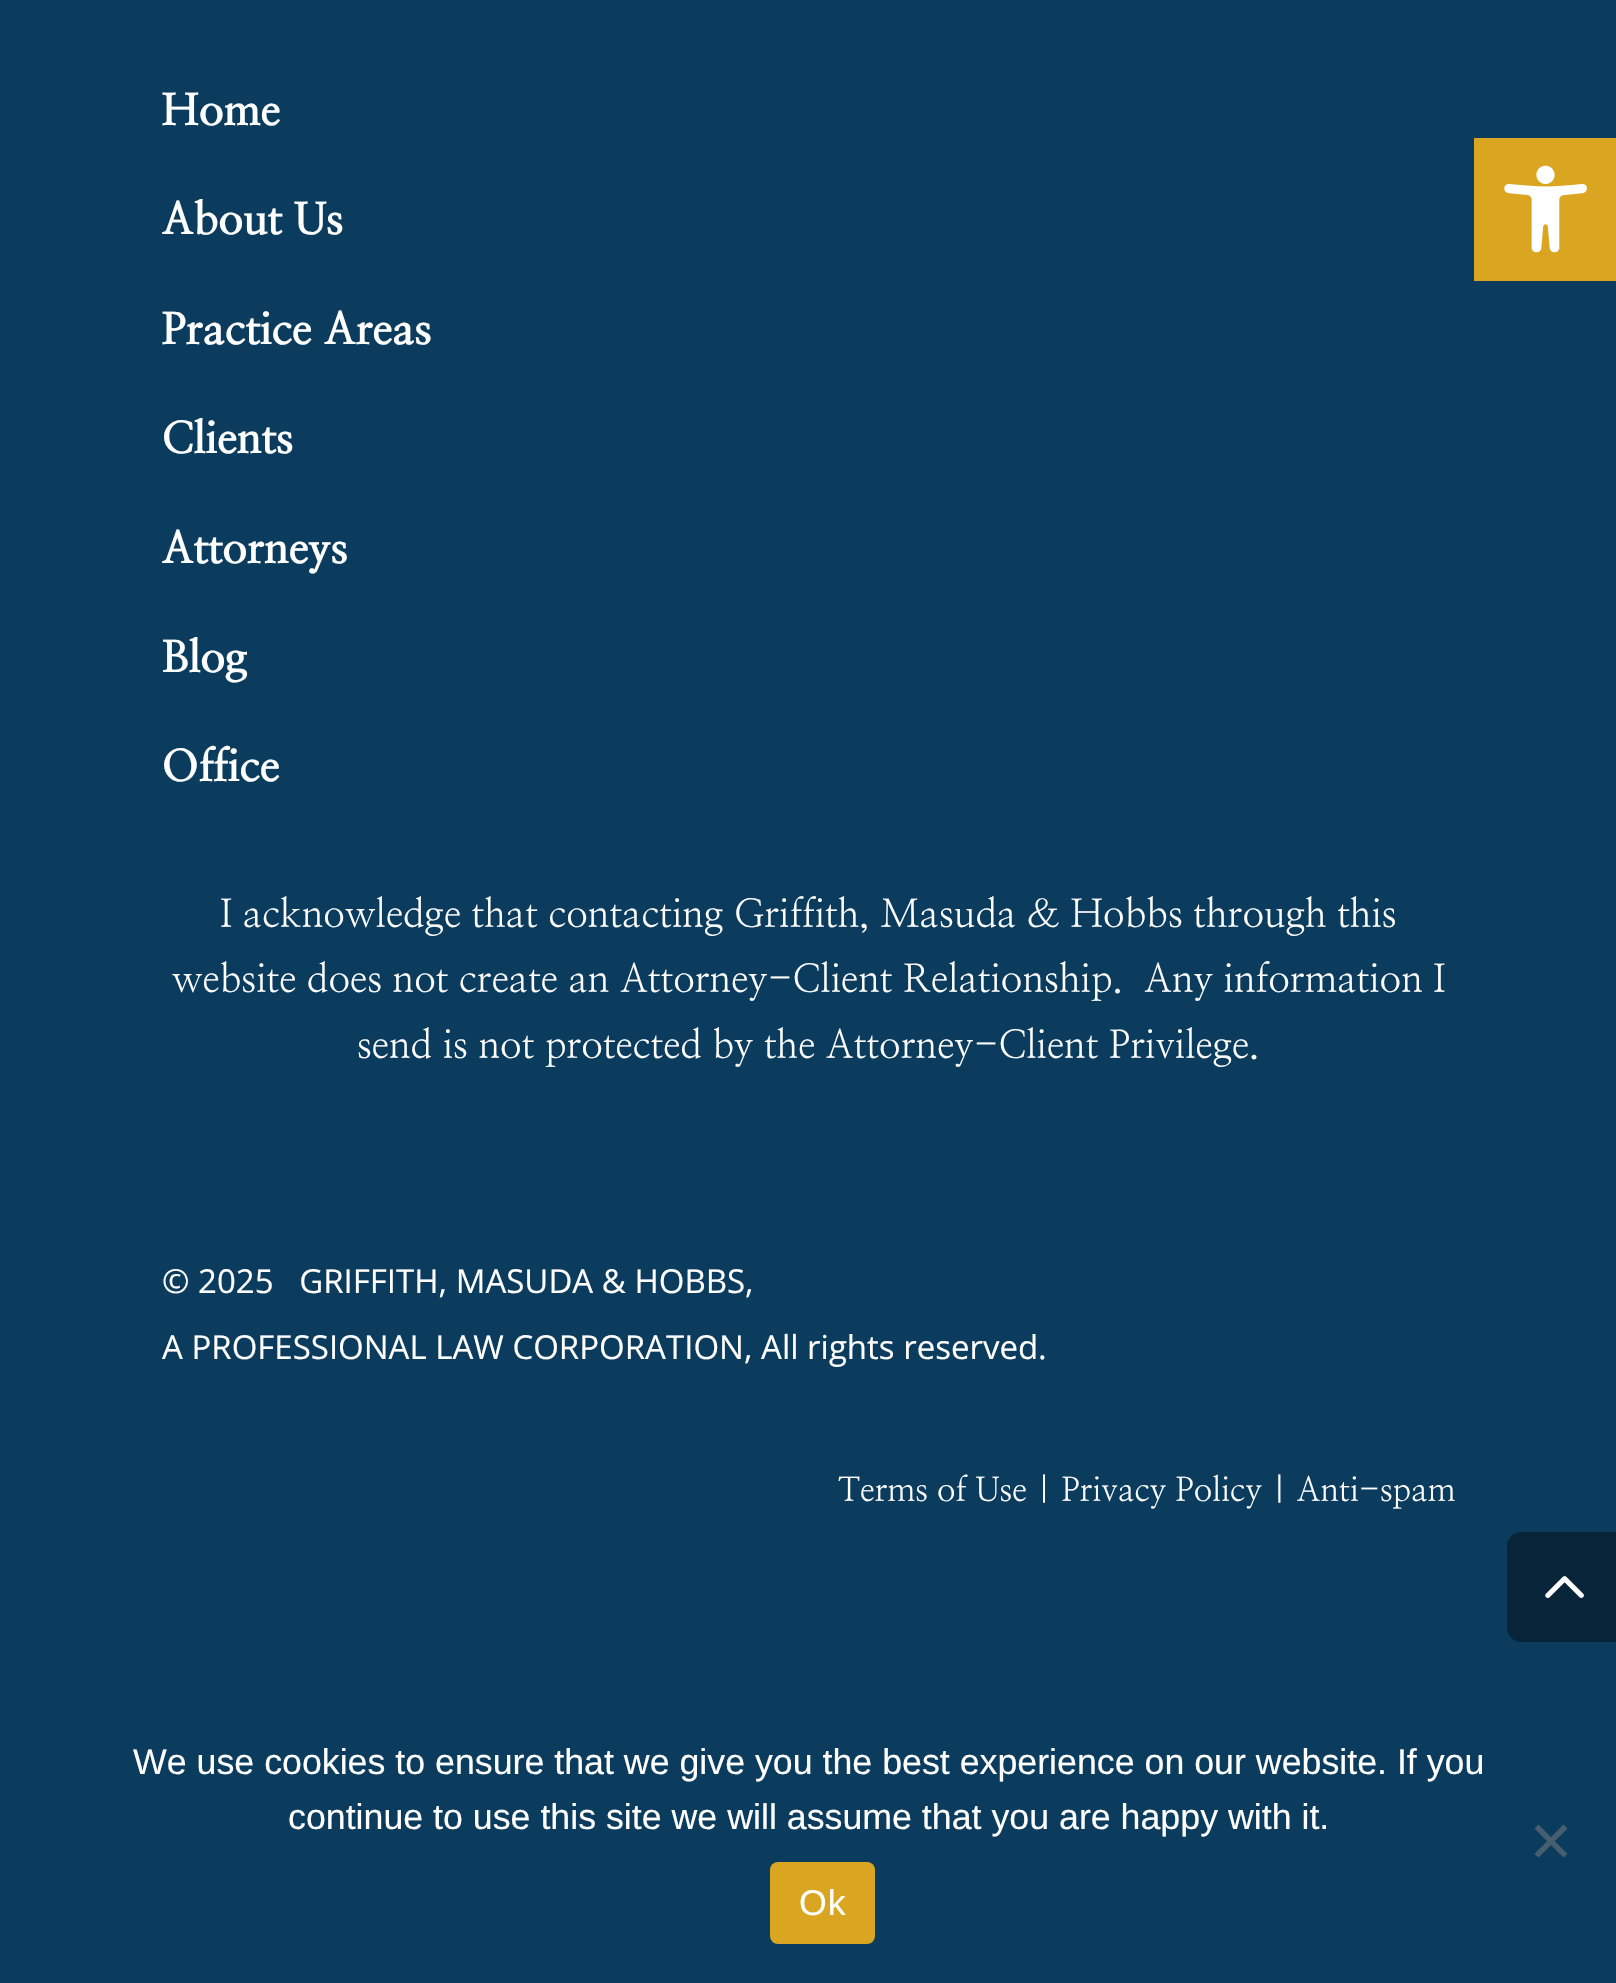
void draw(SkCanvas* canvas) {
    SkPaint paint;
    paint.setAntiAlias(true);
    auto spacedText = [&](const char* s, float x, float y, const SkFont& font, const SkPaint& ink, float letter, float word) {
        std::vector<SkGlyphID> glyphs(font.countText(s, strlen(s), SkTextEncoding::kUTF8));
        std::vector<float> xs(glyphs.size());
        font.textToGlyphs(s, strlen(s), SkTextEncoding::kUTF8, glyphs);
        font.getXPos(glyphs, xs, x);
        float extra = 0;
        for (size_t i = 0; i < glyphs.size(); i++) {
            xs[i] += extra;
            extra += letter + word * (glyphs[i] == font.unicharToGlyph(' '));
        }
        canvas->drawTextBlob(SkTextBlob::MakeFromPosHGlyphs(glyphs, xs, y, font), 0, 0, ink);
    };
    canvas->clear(0xFF0B3C5D);
    SkFont font1(fontMgr->matchFamilyStyle("NanumMyeongjo", SkFontStyle(800, SkFontStyle::kNormal_Width, SkFontStyle::kUpright_Slant)), 44);
    font1.setSubpixel(true);
    paint.setColor(0xFFFFFFFF);
    canvas->drawString("Home", 162, 125, font1, paint);
    canvas->drawString("About Us", 162, 234, font1, paint);
    canvas->drawString("Practice Areas", 162, 344, font1, paint);
    canvas->drawString("Clients", 162, 453, font1, paint);
    canvas->drawString("Attorneys", 162, 563, font1, paint);
    canvas->drawString("Blog", 162, 672, font1, paint);
    canvas->drawString("Office", 162, 781, font1, paint);
    SkFont font2(fontMgr->matchFamilyStyle("NanumMyeongjo", SkFontStyle::Normal()), 38.5f);
    font2.setSubpixel(true);
    canvas->drawString("I acknowledge that contacting Griffith, Masuda & Hobbs through this", 220, 927, font2, paint);
    canvas->drawString("website does not create an Attorney-Client Relationship.  Any information I", 172, 992, font2, paint);
    canvas->drawString("send is not protected by the Attorney-Client Privilege.", 357, 1058, font2, paint);
    SkFont font3(fontMgr->matchFamilyStyle("Open Sans", SkFontStyle::Normal()), 33);
    font3.setSubpixel(true);
    canvas->drawString("© 2025   GRIFFITH, MASUDA & HOBBS,", 162, 1293, font3, paint);
    canvas->drawString("A PROFESSIONAL LAW CORPORATION, All rights reserved.", 162, 1359, font3, paint);
    SkFont font4(fontMgr->matchFamilyStyle("NanumMyeongjo", SkFontStyle::Normal()), 33);
    font4.setSubpixel(true);
    canvas->drawString("Terms of Use | Privacy Policy | Anti-spam", 838, 1501, font4, paint);
    paint.setColor(0xFFDAA520);
    canvas->drawRect(SkRect::MakeXYWH(1474, 138, 142, 143), paint);
    canvas->drawImageRect(SkImages::DeferredFromEncodedData(SkData::MakeFromFileName("img1.png")), SkRect::MakeXYWH(1504, 165, 83, 88), SkSamplingOptions());
    paint.setColor(0xFF072438);
    canvas->drawPath(SkPathBuilder().moveTo(1521, 1532).lineTo(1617, 1532).lineTo(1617, 1642).lineTo(1521, 1642).cubicTo(1513.5f, 1642, 1507, 1635.5f, 1507, 1628).lineTo(1507, 1546).cubicTo(1507, 1538.5f, 1513.5f, 1532, 1521, 1532).close().detach(), paint);
    canvas->drawImageRect(SkImages::DeferredFromEncodedData(SkData::MakeFromFileName("img2.png")), SkRect::MakeXYWH(1545, 1576, 39, 22), SkSamplingOptions());
    SkFont font5(fontMgr->matchFamilyStyle("Liberation Sans", SkFontStyle::Normal()), 35.75f);
    font5.setSubpixel(true);
    paint.setColor(0xFFFFFFFF);
    canvas->drawString("We use cookies to ensure that we give you the best experience on our website. If you", 133, 1774, font5, paint);
    canvas->drawString("continue to use this site we will assume that you are happy with it.", 288, 1829, font5, paint);
    paint.setColor(0xFF465E6F);
    canvas->drawPath(SkPathBuilder().moveTo(1563.5f, 1824.5f).lineTo(1567.5f, 1828.5f).lineTo(1538.5f, 1857.5f).lineTo(1534.5f, 1854).close().detach(), paint);
    canvas->drawPath(SkPathBuilder().moveTo(1534.5f, 1828.5f).lineTo(1538.5f, 1824.5f).lineTo(1567.5f, 1854).lineTo(1563.5f, 1857.5f).close().detach(), paint);
    paint.setColor(0xFFDAA520);
    canvas->drawRoundRect(SkRect::MakeXYWH(770, 1862, 105, 82), 8, 8, paint);
    paint.setColor(0xFFFFFFFF);
    spacedText("Ok", 799, 1915, font5, paint, 1, 0);
}
